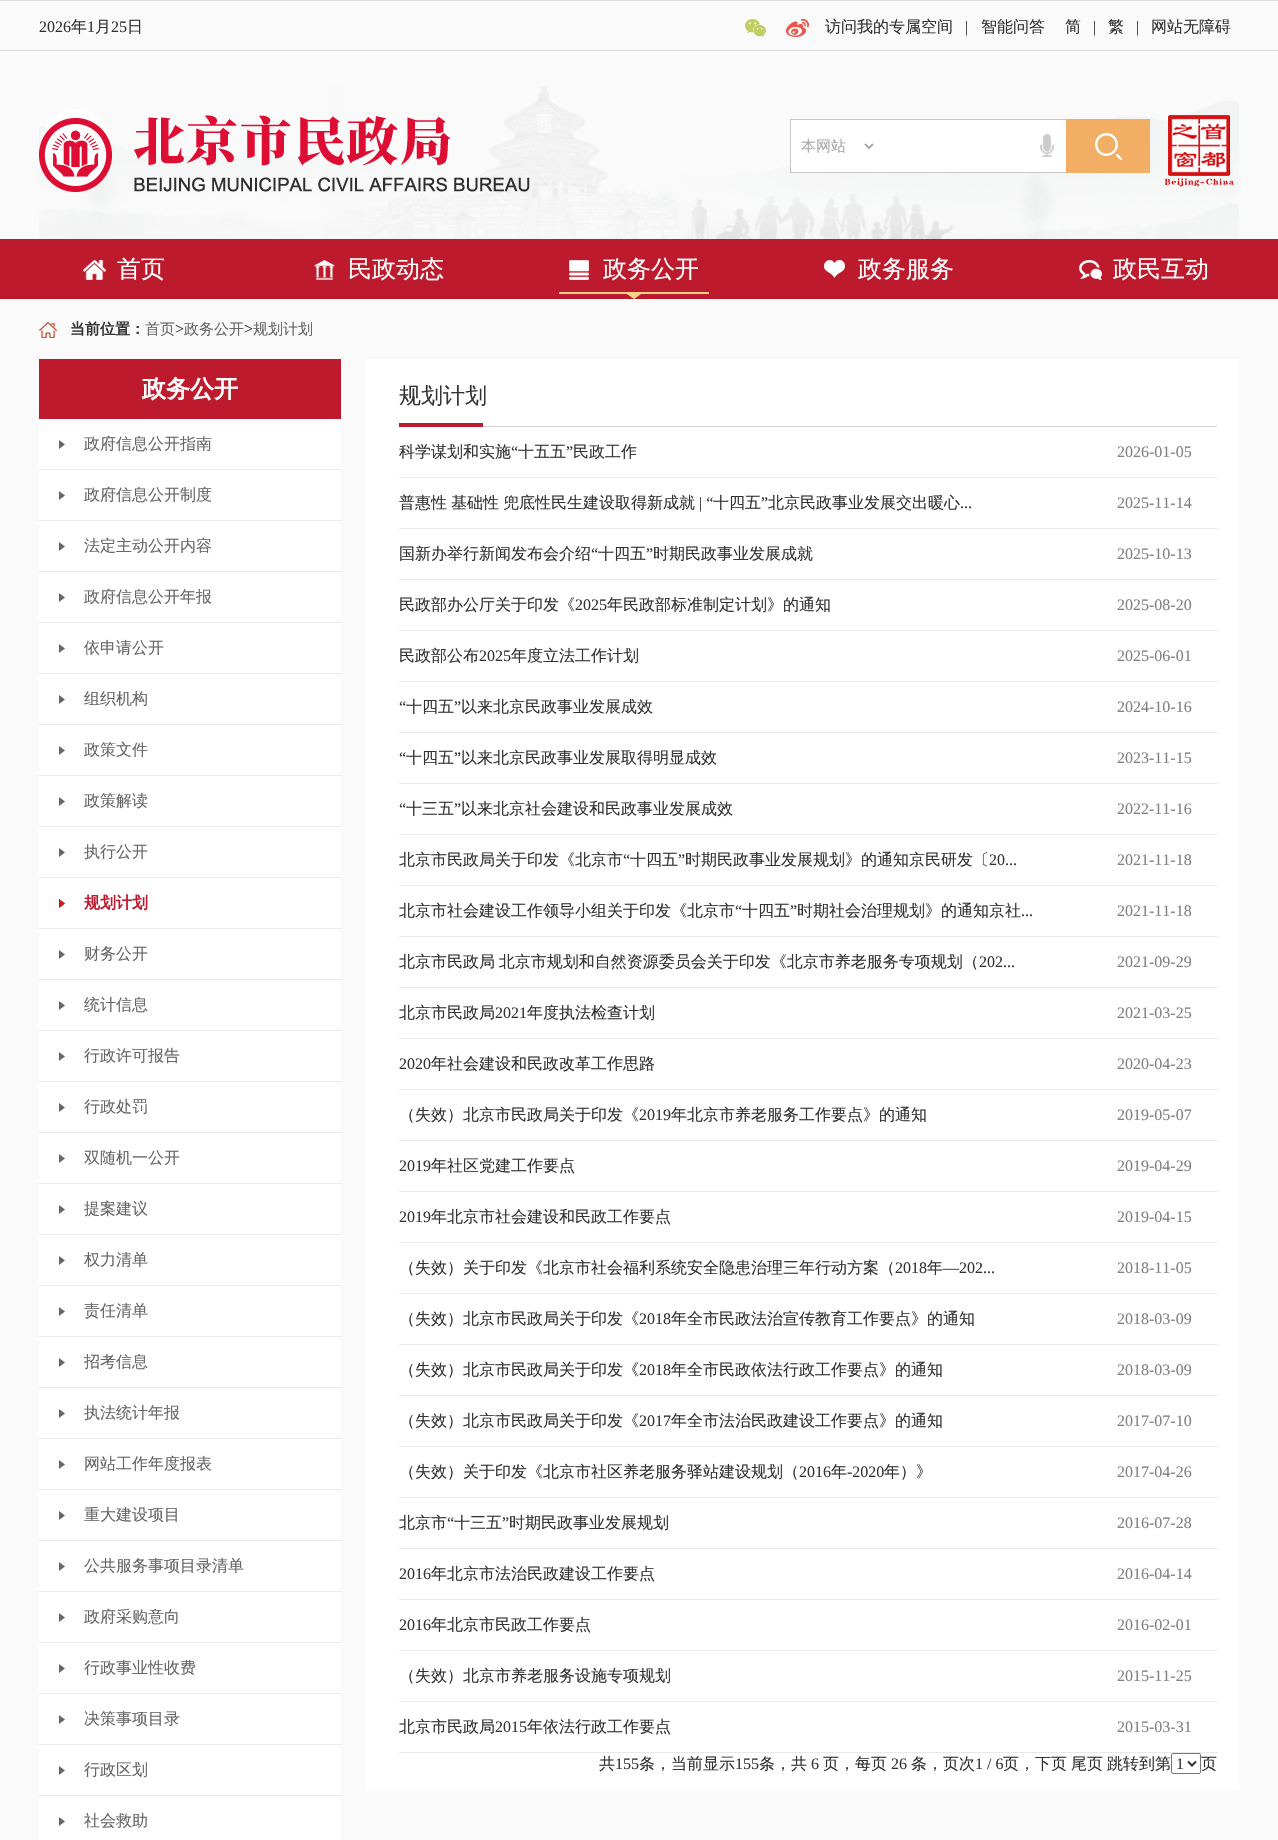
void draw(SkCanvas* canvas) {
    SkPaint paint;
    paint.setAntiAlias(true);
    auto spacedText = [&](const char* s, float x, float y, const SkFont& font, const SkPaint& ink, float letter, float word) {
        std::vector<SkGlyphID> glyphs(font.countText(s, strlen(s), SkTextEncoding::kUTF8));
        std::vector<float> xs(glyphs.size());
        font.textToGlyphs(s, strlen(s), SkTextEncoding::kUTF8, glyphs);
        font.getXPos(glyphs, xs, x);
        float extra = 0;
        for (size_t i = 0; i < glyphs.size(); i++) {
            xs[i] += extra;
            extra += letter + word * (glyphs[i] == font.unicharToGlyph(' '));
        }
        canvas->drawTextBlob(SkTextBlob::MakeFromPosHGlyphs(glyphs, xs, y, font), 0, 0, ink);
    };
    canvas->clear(0xFFFAFAFA);
    paint.setColor(0xFFDCDCDC);
    canvas->drawRect(SkRect::MakeXYWH(0, 0, 1278, 1), paint);
    canvas->drawRect(SkRect::MakeXYWH(0, 50, 1278, 1), paint);
    SkFont font1(fontMgr->matchFamilyStyle("Liberation Serif", SkFontStyle::Normal()), 16);
    font1.setSubpixel(true);
    paint.setColor(0xFF333333);
    canvas->drawString("2026", 39, 32, font1, paint);
    SkFont font2(fontMgr->matchFamilyStyle("WenQuanYi Zen Hei", SkFontStyle(500, SkFontStyle::kNormal_Width, SkFontStyle::kUpright_Slant)), 16);
    font2.setSubpixel(true);
    canvas->drawString("年", 71, 32, font2, paint);
    canvas->drawString("1", 87, 32, font1, paint);
    canvas->drawString("月", 95, 32, font2, paint);
    canvas->drawString("25", 111, 32, font1, paint);
    canvas->drawString("日", 127, 32, font2, paint);
    canvas->drawImageRect(SkImages::DeferredFromEncodedData(SkData::MakeFromFileName("img1.png")), SkRect::MakeXYWH(745, 19, 21, 18), SkSamplingOptions());
    canvas->drawImageRect(SkImages::DeferredFromEncodedData(SkData::MakeFromFileName("img2.png")), SkRect::MakeXYWH(786, 19, 23, 18), SkSamplingOptions());
    canvas->drawString("访问我的专属空间", 825, 32, font2, paint);
    canvas->drawString("|", 965, 32, font1, paint);
    canvas->drawString("智能问答", 981, 32, font2, paint);
    canvas->drawString("简", 1065, 32, font2, paint);
    canvas->drawString("|", 1093, 32, font1, paint);
    canvas->drawString("繁", 1108, 32, font2, paint);
    canvas->drawString("|", 1136, 32, font1, paint);
    canvas->drawString("网站无障碍", 1151, 32, font2, paint);
    canvas->drawImageRect(SkImages::DeferredFromEncodedData(SkData::MakeFromFileName("img3.png")), SkRect::MakeXYWH(39, 86, 1200, 153), SkSamplingOptions());
    canvas->drawImageRect(SkImages::DeferredFromEncodedData(SkData::MakeFromFileName("img4.png")), SkRect::MakeXYWH(39, 115, 491, 77), SkSamplingOptions());
    paint.setColor(0xFFFFFFFF);
    canvas->drawRect(SkRect::MakeXYWH(791, 120, 275, 52), paint);
    paint.setStyle(SkPaint::kStroke_Style);
    paint.setStrokeWidth(1);
    paint.setColor(0xFFC6C6C6);
    canvas->drawRect(SkRect::MakeXYWH(790.5f, 119.5f, 359, 53), paint);
    paint.setStrokeWidth(2);
    paint.setColor(0xFFAAAAAA);
    canvas->drawPath(SkPathBuilder().moveTo(865, 144).lineTo(869, 148).lineTo(873, 144).detach(), paint);
    SkFont font3(fontMgr->matchFamilyStyle("WenQuanYi Zen Hei", SkFontStyle(500, SkFontStyle::kNormal_Width, SkFontStyle::kUpright_Slant)), 15);
    font3.setSubpixel(true);
    paint.setStyle(SkPaint::kFill_Style);
    canvas->drawString("本网站", 801, 151, font3, paint);
    canvas->drawImageRect(SkImages::DeferredFromEncodedData(SkData::MakeFromFileName("img5.png")), SkRect::MakeXYWH(1040, 134, 14, 23), SkSamplingOptions());
    paint.setColor(0xFFF2AE65);
    canvas->drawRect(SkRect::MakeXYWH(1066, 119, 84, 54), paint);
    canvas->drawImageRect(SkImages::DeferredFromEncodedData(SkData::MakeFromFileName("img6.png")), SkRect::MakeXYWH(1095, 133, 27, 27), SkSamplingOptions());
    canvas->drawImageRect(SkImages::DeferredFromEncodedData(SkData::MakeFromFileName("img7.png")), SkRect::MakeXYWH(1164, 115, 70, 72), SkSamplingOptions());
    paint.setColor(0xFFBD1A2D);
    canvas->drawRect(SkRect::MakeXYWH(0, 239, 1278, 60), paint);
    canvas->drawImageRect(SkImages::DeferredFromEncodedData(SkData::MakeFromFileName("img8.png")), SkRect::MakeXYWH(83, 260, 23, 20), SkSamplingOptions());
    SkFont font4(fontMgr->matchFamilyStyle("WenQuanYi Zen Hei", SkFontStyle(500, SkFontStyle::kNormal_Width, SkFontStyle::kUpright_Slant)), 24);
    font4.setSubpixel(true);
    paint.setColor(0xFFFFFFFF);
    canvas->drawString("首页", 117, 277, font4, paint);
    canvas->drawImageRect(SkImages::DeferredFromEncodedData(SkData::MakeFromFileName("img9.png")), SkRect::MakeXYWH(314, 260, 21, 20), SkSamplingOptions());
    canvas->drawString("民政动态", 348, 277, font4, paint);
    canvas->drawImageRect(SkImages::DeferredFromEncodedData(SkData::MakeFromFileName("img10.png")), SkRect::MakeXYWH(559, 292, 150, 7), SkSamplingOptions());
    canvas->drawImageRect(SkImages::DeferredFromEncodedData(SkData::MakeFromFileName("img11.png")), SkRect::MakeXYWH(569, 260, 20, 20), SkSamplingOptions());
    canvas->drawString("政务公开", 603, 277, font4, paint);
    canvas->drawImageRect(SkImages::DeferredFromEncodedData(SkData::MakeFromFileName("img12.png")), SkRect::MakeXYWH(824, 260, 21, 18), SkSamplingOptions());
    canvas->drawString("政务服务", 858, 277, font4, paint);
    canvas->drawImageRect(SkImages::DeferredFromEncodedData(SkData::MakeFromFileName("img13.png")), SkRect::MakeXYWH(1079, 260, 23, 20), SkSamplingOptions());
    canvas->drawString("政民互动", 1113, 277, font4, paint);
    canvas->drawImageRect(SkImages::DeferredFromEncodedData(SkData::MakeFromFileName("img14.png")), SkRect::MakeXYWH(39, 322, 18, 16), SkSamplingOptions());
    SkFont font5(fontMgr->matchFamilyStyle("WenQuanYi Zen Hei", SkFontStyle::Bold()), 15);
    font5.setSubpixel(true);
    paint.setColor(0xFF333333);
    canvas->drawString("当前位置：", 70, 334, font5, paint);
    paint.setColor(0xFF666666);
    canvas->drawString("首页", 145, 334, font3, paint);
    paint.setColor(0xFF333333);
    canvas->drawString(">", 175, 334, font1, paint);
    paint.setColor(0xFF666666);
    canvas->drawString("政务公开", 184, 334, font3, paint);
    paint.setColor(0xFF333333);
    canvas->drawString(">", 244, 334, font1, paint);
    paint.setColor(0xFF666666);
    canvas->drawString("规划计划", 253, 334, font3, paint);
    paint.setColor(0xFFFFFFFF);
    canvas->drawRect(SkRect::MakeXYWH(39, 419, 302, 1421), paint);
    paint.setColor(0xFFBD1A2D);
    canvas->drawRect(SkRect::MakeXYWH(39, 359, 302, 60), paint);
    SkFont font6(fontMgr->matchFamilyStyle("WenQuanYi Zen Hei", SkFontStyle::Bold()), 24);
    font6.setSubpixel(true);
    paint.setColor(0xFFFFFFFF);
    canvas->drawString("政务公开", 142, 397, font6, paint);
    canvas->drawImageRect(SkImages::DeferredFromEncodedData(SkData::MakeFromFileName("img15.png")), SkRect::MakeXYWH(59, 440, 6, 9), SkSamplingOptions());
    paint.setColor(0xFFEAEAEA);
    canvas->drawRect(SkRect::MakeXYWH(39, 469, 302, 1), paint);
    paint.setColor(0xFF666666);
    canvas->drawString("政府信息公开指南", 84, 449, font2, paint);
    canvas->drawImageRect(SkImages::DeferredFromEncodedData(SkData::MakeFromFileName("img15.png")), SkRect::MakeXYWH(59, 491, 6, 9), SkSamplingOptions());
    paint.setColor(0xFFEAEAEA);
    canvas->drawRect(SkRect::MakeXYWH(39, 520, 302, 1), paint);
    paint.setColor(0xFF666666);
    canvas->drawString("政府信息公开制度", 84, 500, font2, paint);
    canvas->drawImageRect(SkImages::DeferredFromEncodedData(SkData::MakeFromFileName("img15.png")), SkRect::MakeXYWH(59, 542, 6, 9), SkSamplingOptions());
    paint.setColor(0xFFEAEAEA);
    canvas->drawRect(SkRect::MakeXYWH(39, 571, 302, 1), paint);
    paint.setColor(0xFF666666);
    canvas->drawString("法定主动公开内容", 84, 551, font2, paint);
    canvas->drawImageRect(SkImages::DeferredFromEncodedData(SkData::MakeFromFileName("img15.png")), SkRect::MakeXYWH(59, 593, 6, 9), SkSamplingOptions());
    paint.setColor(0xFFEAEAEA);
    canvas->drawRect(SkRect::MakeXYWH(39, 622, 302, 1), paint);
    paint.setColor(0xFF666666);
    canvas->drawString("政府信息公开年报", 84, 602, font2, paint);
    canvas->drawImageRect(SkImages::DeferredFromEncodedData(SkData::MakeFromFileName("img15.png")), SkRect::MakeXYWH(59, 644, 6, 9), SkSamplingOptions());
    paint.setColor(0xFFEAEAEA);
    canvas->drawRect(SkRect::MakeXYWH(39, 673, 302, 1), paint);
    paint.setColor(0xFF666666);
    canvas->drawString("依申请公开", 84, 653, font2, paint);
    canvas->drawImageRect(SkImages::DeferredFromEncodedData(SkData::MakeFromFileName("img15.png")), SkRect::MakeXYWH(59, 695, 6, 9), SkSamplingOptions());
    paint.setColor(0xFFEAEAEA);
    canvas->drawRect(SkRect::MakeXYWH(39, 724, 302, 1), paint);
    paint.setColor(0xFF666666);
    canvas->drawString("组织机构", 84, 704, font2, paint);
    canvas->drawImageRect(SkImages::DeferredFromEncodedData(SkData::MakeFromFileName("img15.png")), SkRect::MakeXYWH(59, 746, 6, 9), SkSamplingOptions());
    paint.setColor(0xFFEAEAEA);
    canvas->drawRect(SkRect::MakeXYWH(39, 775, 302, 1), paint);
    paint.setColor(0xFF666666);
    canvas->drawString("政策文件", 84, 755, font2, paint);
    canvas->drawImageRect(SkImages::DeferredFromEncodedData(SkData::MakeFromFileName("img15.png")), SkRect::MakeXYWH(59, 797, 6, 9), SkSamplingOptions());
    paint.setColor(0xFFEAEAEA);
    canvas->drawRect(SkRect::MakeXYWH(39, 826, 302, 1), paint);
    paint.setColor(0xFF666666);
    canvas->drawString("政策解读", 84, 806, font2, paint);
    canvas->drawImageRect(SkImages::DeferredFromEncodedData(SkData::MakeFromFileName("img15.png")), SkRect::MakeXYWH(59, 848, 6, 9), SkSamplingOptions());
    paint.setColor(0xFFEAEAEA);
    canvas->drawRect(SkRect::MakeXYWH(39, 877, 302, 1), paint);
    paint.setColor(0xFF666666);
    canvas->drawString("执行公开", 84, 857, font2, paint);
    canvas->drawImageRect(SkImages::DeferredFromEncodedData(SkData::MakeFromFileName("img15.png")), SkRect::MakeXYWH(59, 899, 6, 9), SkSamplingOptions());
    paint.setColor(0xFFEAEAEA);
    canvas->drawRect(SkRect::MakeXYWH(39, 928, 302, 1), paint);
    canvas->drawImageRect(SkImages::DeferredFromEncodedData(SkData::MakeFromFileName("img16.png")), SkRect::MakeXYWH(59, 899, 6, 9), SkSamplingOptions());
    SkFont font7(fontMgr->matchFamilyStyle("WenQuanYi Zen Hei", SkFontStyle::Bold()), 16);
    font7.setSubpixel(true);
    paint.setColor(0xFFBD1A2D);
    canvas->drawString("规划计划", 84, 908, font7, paint);
    canvas->drawImageRect(SkImages::DeferredFromEncodedData(SkData::MakeFromFileName("img15.png")), SkRect::MakeXYWH(59, 950, 6, 9), SkSamplingOptions());
    paint.setColor(0xFFEAEAEA);
    canvas->drawRect(SkRect::MakeXYWH(39, 979, 302, 1), paint);
    paint.setColor(0xFF666666);
    canvas->drawString("财务公开", 84, 959, font2, paint);
    canvas->drawImageRect(SkImages::DeferredFromEncodedData(SkData::MakeFromFileName("img15.png")), SkRect::MakeXYWH(59, 1001, 6, 9), SkSamplingOptions());
    paint.setColor(0xFFEAEAEA);
    canvas->drawRect(SkRect::MakeXYWH(39, 1030, 302, 1), paint);
    paint.setColor(0xFF666666);
    canvas->drawString("统计信息", 84, 1010, font2, paint);
    canvas->drawImageRect(SkImages::DeferredFromEncodedData(SkData::MakeFromFileName("img15.png")), SkRect::MakeXYWH(59, 1052, 6, 9), SkSamplingOptions());
    paint.setColor(0xFFEAEAEA);
    canvas->drawRect(SkRect::MakeXYWH(39, 1081, 302, 1), paint);
    paint.setColor(0xFF666666);
    canvas->drawString("行政许可报告", 84, 1061, font2, paint);
    canvas->drawImageRect(SkImages::DeferredFromEncodedData(SkData::MakeFromFileName("img15.png")), SkRect::MakeXYWH(59, 1103, 6, 9), SkSamplingOptions());
    paint.setColor(0xFFEAEAEA);
    canvas->drawRect(SkRect::MakeXYWH(39, 1132, 302, 1), paint);
    paint.setColor(0xFF666666);
    canvas->drawString("行政处罚", 84, 1112, font2, paint);
    canvas->drawImageRect(SkImages::DeferredFromEncodedData(SkData::MakeFromFileName("img15.png")), SkRect::MakeXYWH(59, 1154, 6, 9), SkSamplingOptions());
    paint.setColor(0xFFEAEAEA);
    canvas->drawRect(SkRect::MakeXYWH(39, 1183, 302, 1), paint);
    paint.setColor(0xFF666666);
    canvas->drawString("双随机一公开", 84, 1163, font2, paint);
    canvas->drawImageRect(SkImages::DeferredFromEncodedData(SkData::MakeFromFileName("img15.png")), SkRect::MakeXYWH(59, 1205, 6, 9), SkSamplingOptions());
    paint.setColor(0xFFEAEAEA);
    canvas->drawRect(SkRect::MakeXYWH(39, 1234, 302, 1), paint);
    paint.setColor(0xFF666666);
    canvas->drawString("提案建议", 84, 1214, font2, paint);
    canvas->drawImageRect(SkImages::DeferredFromEncodedData(SkData::MakeFromFileName("img15.png")), SkRect::MakeXYWH(59, 1256, 6, 9), SkSamplingOptions());
    paint.setColor(0xFFEAEAEA);
    canvas->drawRect(SkRect::MakeXYWH(39, 1285, 302, 1), paint);
    paint.setColor(0xFF666666);
    canvas->drawString("权力清单", 84, 1265, font2, paint);
    canvas->drawImageRect(SkImages::DeferredFromEncodedData(SkData::MakeFromFileName("img15.png")), SkRect::MakeXYWH(59, 1307, 6, 9), SkSamplingOptions());
    paint.setColor(0xFFEAEAEA);
    canvas->drawRect(SkRect::MakeXYWH(39, 1336, 302, 1), paint);
    paint.setColor(0xFF666666);
    canvas->drawString("责任清单", 84, 1316, font2, paint);
    canvas->drawImageRect(SkImages::DeferredFromEncodedData(SkData::MakeFromFileName("img15.png")), SkRect::MakeXYWH(59, 1358, 6, 9), SkSamplingOptions());
    paint.setColor(0xFFEAEAEA);
    canvas->drawRect(SkRect::MakeXYWH(39, 1387, 302, 1), paint);
    paint.setColor(0xFF666666);
    canvas->drawString("招考信息", 84, 1367, font2, paint);
    canvas->drawImageRect(SkImages::DeferredFromEncodedData(SkData::MakeFromFileName("img15.png")), SkRect::MakeXYWH(59, 1409, 6, 9), SkSamplingOptions());
    paint.setColor(0xFFEAEAEA);
    canvas->drawRect(SkRect::MakeXYWH(39, 1438, 302, 1), paint);
    paint.setColor(0xFF666666);
    canvas->drawString("执法统计年报", 84, 1418, font2, paint);
    canvas->drawImageRect(SkImages::DeferredFromEncodedData(SkData::MakeFromFileName("img15.png")), SkRect::MakeXYWH(59, 1460, 6, 9), SkSamplingOptions());
    paint.setColor(0xFFEAEAEA);
    canvas->drawRect(SkRect::MakeXYWH(39, 1489, 302, 1), paint);
    paint.setColor(0xFF666666);
    canvas->drawString("网站工作年度报表", 84, 1469, font2, paint);
    canvas->drawImageRect(SkImages::DeferredFromEncodedData(SkData::MakeFromFileName("img15.png")), SkRect::MakeXYWH(59, 1511, 6, 9), SkSamplingOptions());
    paint.setColor(0xFFEAEAEA);
    canvas->drawRect(SkRect::MakeXYWH(39, 1540, 302, 1), paint);
    paint.setColor(0xFF666666);
    canvas->drawString("重大建设项目", 84, 1520, font2, paint);
    canvas->drawImageRect(SkImages::DeferredFromEncodedData(SkData::MakeFromFileName("img15.png")), SkRect::MakeXYWH(59, 1562, 6, 9), SkSamplingOptions());
    paint.setColor(0xFFEAEAEA);
    canvas->drawRect(SkRect::MakeXYWH(39, 1591, 302, 1), paint);
    paint.setColor(0xFF666666);
    canvas->drawString("公共服务事项目录清单", 84, 1571, font2, paint);
    canvas->drawImageRect(SkImages::DeferredFromEncodedData(SkData::MakeFromFileName("img15.png")), SkRect::MakeXYWH(59, 1613, 6, 9), SkSamplingOptions());
    paint.setColor(0xFFEAEAEA);
    canvas->drawRect(SkRect::MakeXYWH(39, 1642, 302, 1), paint);
    paint.setColor(0xFF666666);
    canvas->drawString("政府采购意向", 84, 1622, font2, paint);
    canvas->drawImageRect(SkImages::DeferredFromEncodedData(SkData::MakeFromFileName("img15.png")), SkRect::MakeXYWH(59, 1664, 6, 9), SkSamplingOptions());
    paint.setColor(0xFFEAEAEA);
    canvas->drawRect(SkRect::MakeXYWH(39, 1693, 302, 1), paint);
    paint.setColor(0xFF666666);
    canvas->drawString("行政事业性收费", 84, 1673, font2, paint);
    canvas->drawImageRect(SkImages::DeferredFromEncodedData(SkData::MakeFromFileName("img15.png")), SkRect::MakeXYWH(59, 1715, 6, 9), SkSamplingOptions());
    paint.setColor(0xFFEAEAEA);
    canvas->drawRect(SkRect::MakeXYWH(39, 1744, 302, 1), paint);
    paint.setColor(0xFF666666);
    canvas->drawString("决策事项目录", 84, 1724, font2, paint);
    canvas->drawImageRect(SkImages::DeferredFromEncodedData(SkData::MakeFromFileName("img15.png")), SkRect::MakeXYWH(59, 1766, 6, 9), SkSamplingOptions());
    paint.setColor(0xFFEAEAEA);
    canvas->drawRect(SkRect::MakeXYWH(39, 1795, 302, 1), paint);
    paint.setColor(0xFF666666);
    canvas->drawString("行政区划", 84, 1775, font2, paint);
    canvas->drawImageRect(SkImages::DeferredFromEncodedData(SkData::MakeFromFileName("img15.png")), SkRect::MakeXYWH(59, 1817, 6, 9), SkSamplingOptions());
    canvas->drawString("社会救助", 84, 1826, font2, paint);
    paint.setColor(0xFFFFFFFF);
    canvas->drawRect(SkRect::MakeXYWH(366, 359, 873, 1432), paint);
    paint.setColor(0xFFD5D5D5);
    canvas->drawRect(SkRect::MakeXYWH(483, 426, 734, 1), paint);
    SkFont font8(fontMgr->matchFamilyStyle("WenQuanYi Zen Hei", SkFontStyle(500, SkFontStyle::kNormal_Width, SkFontStyle::kUpright_Slant)), 22);
    font8.setSubpixel(true);
    paint.setColor(0xFF333333);
    canvas->drawString("规划计划", 399, 403, font8, paint);
    paint.setColor(0xFFBD1A2D);
    canvas->drawRect(SkRect::MakeXYWH(399, 423, 84, 4), paint);
    paint.setColor(0xFF333333);
    canvas->drawString("科学谋划和实施", 399, 457, font2, paint);
    canvas->drawString("“", 511, 457, font1, paint);
    canvas->drawString("十五五", 518, 457, font2, paint);
    canvas->drawString("”", 566, 457, font1, paint);
    canvas->drawString("民政工作", 573, 457, font2, paint);
    paint.setColor(0xFFE8E8E8);
    canvas->drawRect(SkRect::MakeXYWH(399, 477, 819, 1), paint);
    paint.setColor(0xFF808080);
    canvas->drawString("2026-01-05", 1117, 457, font1, paint);
    paint.setColor(0xFF333333);
    canvas->drawString("普惠性", 399, 508, font2, paint);
    canvas->drawString("基础性", 451, 508, font2, paint);
    canvas->drawString("兜底性民生建设取得新成就", 503, 508, font2, paint);
    canvas->drawString("| “", 699, 508, font1, paint);
    canvas->drawString("十四五", 713, 508, font2, paint);
    canvas->drawString("”", 761, 508, font1, paint);
    canvas->drawString("北京民政事业发展交出暖心", 768, 508, font2, paint);
    canvas->drawString("...", 960, 508, font1, paint);
    paint.setColor(0xFFE8E8E8);
    canvas->drawRect(SkRect::MakeXYWH(399, 528, 819, 1), paint);
    paint.setColor(0xFF808080);
    canvas->drawString("2025-11-14", 1117, 508, font1, paint);
    paint.setColor(0xFF333333);
    canvas->drawString("国新办举行新闻发布会介绍", 399, 559, font2, paint);
    canvas->drawString("“", 591, 559, font1, paint);
    canvas->drawString("十四五", 598, 559, font2, paint);
    canvas->drawString("”", 646, 559, font1, paint);
    canvas->drawString("时期民政事业发展成就", 653, 559, font2, paint);
    paint.setColor(0xFFE8E8E8);
    canvas->drawRect(SkRect::MakeXYWH(399, 579, 819, 1), paint);
    paint.setColor(0xFF808080);
    canvas->drawString("2025-10-13", 1117, 559, font1, paint);
    paint.setColor(0xFF333333);
    canvas->drawString("民政部办公厅关于印发《", 399, 610, font2, paint);
    canvas->drawString("2025", 575, 610, font1, paint);
    canvas->drawString("年民政部标准制定计划》的通知", 607, 610, font2, paint);
    paint.setColor(0xFFE8E8E8);
    canvas->drawRect(SkRect::MakeXYWH(399, 630, 819, 1), paint);
    paint.setColor(0xFF808080);
    canvas->drawString("2025-08-20", 1117, 610, font1, paint);
    paint.setColor(0xFF333333);
    canvas->drawString("民政部公布", 399, 661, font2, paint);
    canvas->drawString("2025", 479, 661, font1, paint);
    canvas->drawString("年度立法工作计划", 511, 661, font2, paint);
    paint.setColor(0xFFE8E8E8);
    canvas->drawRect(SkRect::MakeXYWH(399, 681, 819, 1), paint);
    paint.setColor(0xFF808080);
    canvas->drawString("2025-06-01", 1117, 661, font1, paint);
    paint.setColor(0xFF333333);
    canvas->drawString("“", 399, 712, font1, paint);
    canvas->drawString("十四五", 406, 712, font2, paint);
    canvas->drawString("”", 454, 712, font1, paint);
    canvas->drawString("以来北京民政事业发展成效", 461, 712, font2, paint);
    paint.setColor(0xFFE8E8E8);
    canvas->drawRect(SkRect::MakeXYWH(399, 732, 819, 1), paint);
    paint.setColor(0xFF808080);
    canvas->drawString("2024-10-16", 1117, 712, font1, paint);
    paint.setColor(0xFF333333);
    canvas->drawString("“", 399, 763, font1, paint);
    canvas->drawString("十四五", 406, 763, font2, paint);
    canvas->drawString("”", 454, 763, font1, paint);
    canvas->drawString("以来北京民政事业发展取得明显成效", 461, 763, font2, paint);
    paint.setColor(0xFFE8E8E8);
    canvas->drawRect(SkRect::MakeXYWH(399, 783, 819, 1), paint);
    paint.setColor(0xFF808080);
    canvas->drawString("2023-11-15", 1117, 763, font1, paint);
    paint.setColor(0xFF333333);
    canvas->drawString("“", 399, 814, font1, paint);
    canvas->drawString("十三五", 406, 814, font2, paint);
    canvas->drawString("”", 454, 814, font1, paint);
    canvas->drawString("以来北京社会建设和民政事业发展成效", 461, 814, font2, paint);
    paint.setColor(0xFFE8E8E8);
    canvas->drawRect(SkRect::MakeXYWH(399, 834, 819, 1), paint);
    paint.setColor(0xFF808080);
    canvas->drawString("2022-11-16", 1117, 814, font1, paint);
    paint.setColor(0xFF333333);
    canvas->drawString("北京市民政局关于印发《北京市", 399, 865, font2, paint);
    canvas->drawString("“", 623, 865, font1, paint);
    canvas->drawString("十四五", 630, 865, font2, paint);
    canvas->drawString("”", 678, 865, font1, paint);
    canvas->drawString("时期民政事业发展规划》的通知京民研发〔", 685, 865, font2, paint);
    canvas->drawString("20...", 989, 865, font1, paint);
    paint.setColor(0xFFE8E8E8);
    canvas->drawRect(SkRect::MakeXYWH(399, 885, 819, 1), paint);
    paint.setColor(0xFF808080);
    canvas->drawString("2021-11-18", 1117, 865, font1, paint);
    paint.setColor(0xFF333333);
    canvas->drawString("北京市社会建设工作领导小组关于印发《北京市", 399, 916, font2, paint);
    canvas->drawString("“", 735, 916, font1, paint);
    canvas->drawString("十四五", 742, 916, font2, paint);
    canvas->drawString("”", 790, 916, font1, paint);
    canvas->drawString("时期社会治理规划》的通知京社", 797, 916, font2, paint);
    canvas->drawString("...", 1021, 916, font1, paint);
    paint.setColor(0xFFE8E8E8);
    canvas->drawRect(SkRect::MakeXYWH(399, 936, 819, 1), paint);
    paint.setColor(0xFF808080);
    canvas->drawString("2021-11-18", 1117, 916, font1, paint);
    paint.setColor(0xFF333333);
    spacedText("北京市民政局 北京市规划和自然资源委员会关于印发《北京市养老服务专项规划（", 399, 967, font2, paint, 0, -1);
    canvas->drawString("202...", 979, 967, font1, paint);
    paint.setColor(0xFFE8E8E8);
    canvas->drawRect(SkRect::MakeXYWH(399, 987, 819, 1), paint);
    paint.setColor(0xFF808080);
    canvas->drawString("2021-09-29", 1117, 967, font1, paint);
    paint.setColor(0xFF333333);
    canvas->drawString("北京市民政局", 399, 1018, font2, paint);
    canvas->drawString("2021", 495, 1018, font1, paint);
    canvas->drawString("年度执法检查计划", 527, 1018, font2, paint);
    paint.setColor(0xFFE8E8E8);
    canvas->drawRect(SkRect::MakeXYWH(399, 1038, 819, 1), paint);
    paint.setColor(0xFF808080);
    canvas->drawString("2021-03-25", 1117, 1018, font1, paint);
    paint.setColor(0xFF333333);
    canvas->drawString("2020", 399, 1069, font1, paint);
    canvas->drawString("年社会建设和民政改革工作思路", 431, 1069, font2, paint);
    paint.setColor(0xFFE8E8E8);
    canvas->drawRect(SkRect::MakeXYWH(399, 1089, 819, 1), paint);
    paint.setColor(0xFF808080);
    canvas->drawString("2020-04-23", 1117, 1069, font1, paint);
    paint.setColor(0xFF333333);
    canvas->drawString("（失效）北京市民政局关于印发《", 399, 1120, font2, paint);
    canvas->drawString("2019", 639, 1120, font1, paint);
    canvas->drawString("年北京市养老服务工作要点》的通知", 671, 1120, font2, paint);
    paint.setColor(0xFFE8E8E8);
    canvas->drawRect(SkRect::MakeXYWH(399, 1140, 819, 1), paint);
    paint.setColor(0xFF808080);
    canvas->drawString("2019-05-07", 1117, 1120, font1, paint);
    paint.setColor(0xFF333333);
    canvas->drawString("2019", 399, 1171, font1, paint);
    canvas->drawString("年社区党建工作要点", 431, 1171, font2, paint);
    paint.setColor(0xFFE8E8E8);
    canvas->drawRect(SkRect::MakeXYWH(399, 1191, 819, 1), paint);
    paint.setColor(0xFF808080);
    canvas->drawString("2019-04-29", 1117, 1171, font1, paint);
    paint.setColor(0xFF333333);
    canvas->drawString("2019", 399, 1222, font1, paint);
    canvas->drawString("年北京市社会建设和民政工作要点", 431, 1222, font2, paint);
    paint.setColor(0xFFE8E8E8);
    canvas->drawRect(SkRect::MakeXYWH(399, 1242, 819, 1), paint);
    paint.setColor(0xFF808080);
    canvas->drawString("2019-04-15", 1117, 1222, font1, paint);
    paint.setColor(0xFF333333);
    canvas->drawString("（失效）关于印发《北京市社会福利系统安全隐患治理三年行动方案（", 399, 1273, font2, paint);
    canvas->drawString("2018", 895, 1273, font1, paint);
    canvas->drawString("年", 927, 1273, font2, paint);
    canvas->drawString("—202...", 943, 1273, font1, paint);
    paint.setColor(0xFFE8E8E8);
    canvas->drawRect(SkRect::MakeXYWH(399, 1293, 819, 1), paint);
    paint.setColor(0xFF808080);
    canvas->drawString("2018-11-05", 1117, 1273, font1, paint);
    paint.setColor(0xFF333333);
    canvas->drawString("（失效）北京市民政局关于印发《", 399, 1324, font2, paint);
    canvas->drawString("2018", 639, 1324, font1, paint);
    canvas->drawString("年全市民政法治宣传教育工作要点》的通知", 671, 1324, font2, paint);
    paint.setColor(0xFFE8E8E8);
    canvas->drawRect(SkRect::MakeXYWH(399, 1344, 819, 1), paint);
    paint.setColor(0xFF808080);
    canvas->drawString("2018-03-09", 1117, 1324, font1, paint);
    paint.setColor(0xFF333333);
    canvas->drawString("（失效）北京市民政局关于印发《", 399, 1375, font2, paint);
    canvas->drawString("2018", 639, 1375, font1, paint);
    canvas->drawString("年全市民政依法行政工作要点》的通知", 671, 1375, font2, paint);
    paint.setColor(0xFFE8E8E8);
    canvas->drawRect(SkRect::MakeXYWH(399, 1395, 819, 1), paint);
    paint.setColor(0xFF808080);
    canvas->drawString("2018-03-09", 1117, 1375, font1, paint);
    paint.setColor(0xFF333333);
    canvas->drawString("（失效）北京市民政局关于印发《", 399, 1426, font2, paint);
    canvas->drawString("2017", 639, 1426, font1, paint);
    canvas->drawString("年全市法治民政建设工作要点》的通知", 671, 1426, font2, paint);
    paint.setColor(0xFFE8E8E8);
    canvas->drawRect(SkRect::MakeXYWH(399, 1446, 819, 1), paint);
    paint.setColor(0xFF808080);
    canvas->drawString("2017-07-10", 1117, 1426, font1, paint);
    paint.setColor(0xFF333333);
    canvas->drawString("（失效）关于印发《北京市社区养老服务驿站建设规划（", 399, 1477, font2, paint);
    canvas->drawString("2016", 799, 1477, font1, paint);
    canvas->drawString("年", 831, 1477, font2, paint);
    canvas->drawString("-2020", 847, 1477, font1, paint);
    canvas->drawString("年）》", 884, 1477, font2, paint);
    paint.setColor(0xFFE8E8E8);
    canvas->drawRect(SkRect::MakeXYWH(399, 1497, 819, 1), paint);
    paint.setColor(0xFF808080);
    canvas->drawString("2017-04-26", 1117, 1477, font1, paint);
    paint.setColor(0xFF333333);
    canvas->drawString("北京市", 399, 1528, font2, paint);
    canvas->drawString("“", 447, 1528, font1, paint);
    canvas->drawString("十三五", 454, 1528, font2, paint);
    canvas->drawString("”", 502, 1528, font1, paint);
    canvas->drawString("时期民政事业发展规划", 509, 1528, font2, paint);
    paint.setColor(0xFFE8E8E8);
    canvas->drawRect(SkRect::MakeXYWH(399, 1548, 819, 1), paint);
    paint.setColor(0xFF808080);
    canvas->drawString("2016-07-28", 1117, 1528, font1, paint);
    paint.setColor(0xFF333333);
    canvas->drawString("2016", 399, 1579, font1, paint);
    canvas->drawString("年北京市法治民政建设工作要点", 431, 1579, font2, paint);
    paint.setColor(0xFFE8E8E8);
    canvas->drawRect(SkRect::MakeXYWH(399, 1599, 819, 1), paint);
    paint.setColor(0xFF808080);
    canvas->drawString("2016-04-14", 1117, 1579, font1, paint);
    paint.setColor(0xFF333333);
    canvas->drawString("2016", 399, 1630, font1, paint);
    canvas->drawString("年北京市民政工作要点", 431, 1630, font2, paint);
    paint.setColor(0xFFE8E8E8);
    canvas->drawRect(SkRect::MakeXYWH(399, 1650, 819, 1), paint);
    paint.setColor(0xFF808080);
    canvas->drawString("2016-02-01", 1117, 1630, font1, paint);
    paint.setColor(0xFF333333);
    canvas->drawString("（失效）北京市养老服务设施专项规划", 399, 1681, font2, paint);
    paint.setColor(0xFFE8E8E8);
    canvas->drawRect(SkRect::MakeXYWH(399, 1701, 819, 1), paint);
    paint.setColor(0xFF808080);
    canvas->drawString("2015-11-25", 1117, 1681, font1, paint);
    paint.setColor(0xFF333333);
    canvas->drawString("北京市民政局", 399, 1732, font2, paint);
    canvas->drawString("2015", 495, 1732, font1, paint);
    canvas->drawString("年依法行政工作要点", 527, 1732, font2, paint);
    paint.setColor(0xFFE8E8E8);
    canvas->drawRect(SkRect::MakeXYWH(399, 1752, 819, 1), paint);
    paint.setColor(0xFF808080);
    canvas->drawString("2015-03-31", 1117, 1732, font1, paint);
    paint.setColor(0xFF333333);
    canvas->drawString("共", 599, 1769, font2, paint);
    canvas->drawString("155", 615, 1769, font1, paint);
    canvas->drawString("条，当前显示", 639, 1769, font2, paint);
    canvas->drawString("155", 735, 1769, font1, paint);
    canvas->drawString("条，共", 759, 1769, font2, paint);
    canvas->drawString("6", 811, 1769, font1, paint);
    canvas->drawString("页，每页", 823, 1769, font2, paint);
    canvas->drawString("26", 891, 1769, font1, paint);
    canvas->drawString("条，页次", 911, 1769, font2, paint);
    canvas->drawString("1 / 6", 975, 1769, font1, paint);
    canvas->drawString("页，下页", 1003, 1769, font2, paint);
    canvas->drawString("尾页", 1071, 1769, font2, paint);
    canvas->drawString("跳转到第", 1107, 1769, font2, paint);
    paint.setStyle(SkPaint::kStroke_Style);
    paint.setStrokeWidth(1);
    paint.setColor(0xFF767676);
    canvas->drawRoundRect(SkRect::MakeXYWH(1171.5f, 1753.5f, 29, 20), 1.5f, 1.5f, paint);
    paint.setStrokeWidth(2);
    paint.setColor(0xFF333333);
    canvas->drawPath(SkPathBuilder().moveTo(1188, 1761.5f).lineTo(1192, 1765.5f).lineTo(1196, 1761.5f).detach(), paint);
    paint.setStyle(SkPaint::kFill_Style);
    canvas->drawString("1", 1176, 1769, font1, paint);
    canvas->drawString("页", 1201, 1769, font2, paint);
}
